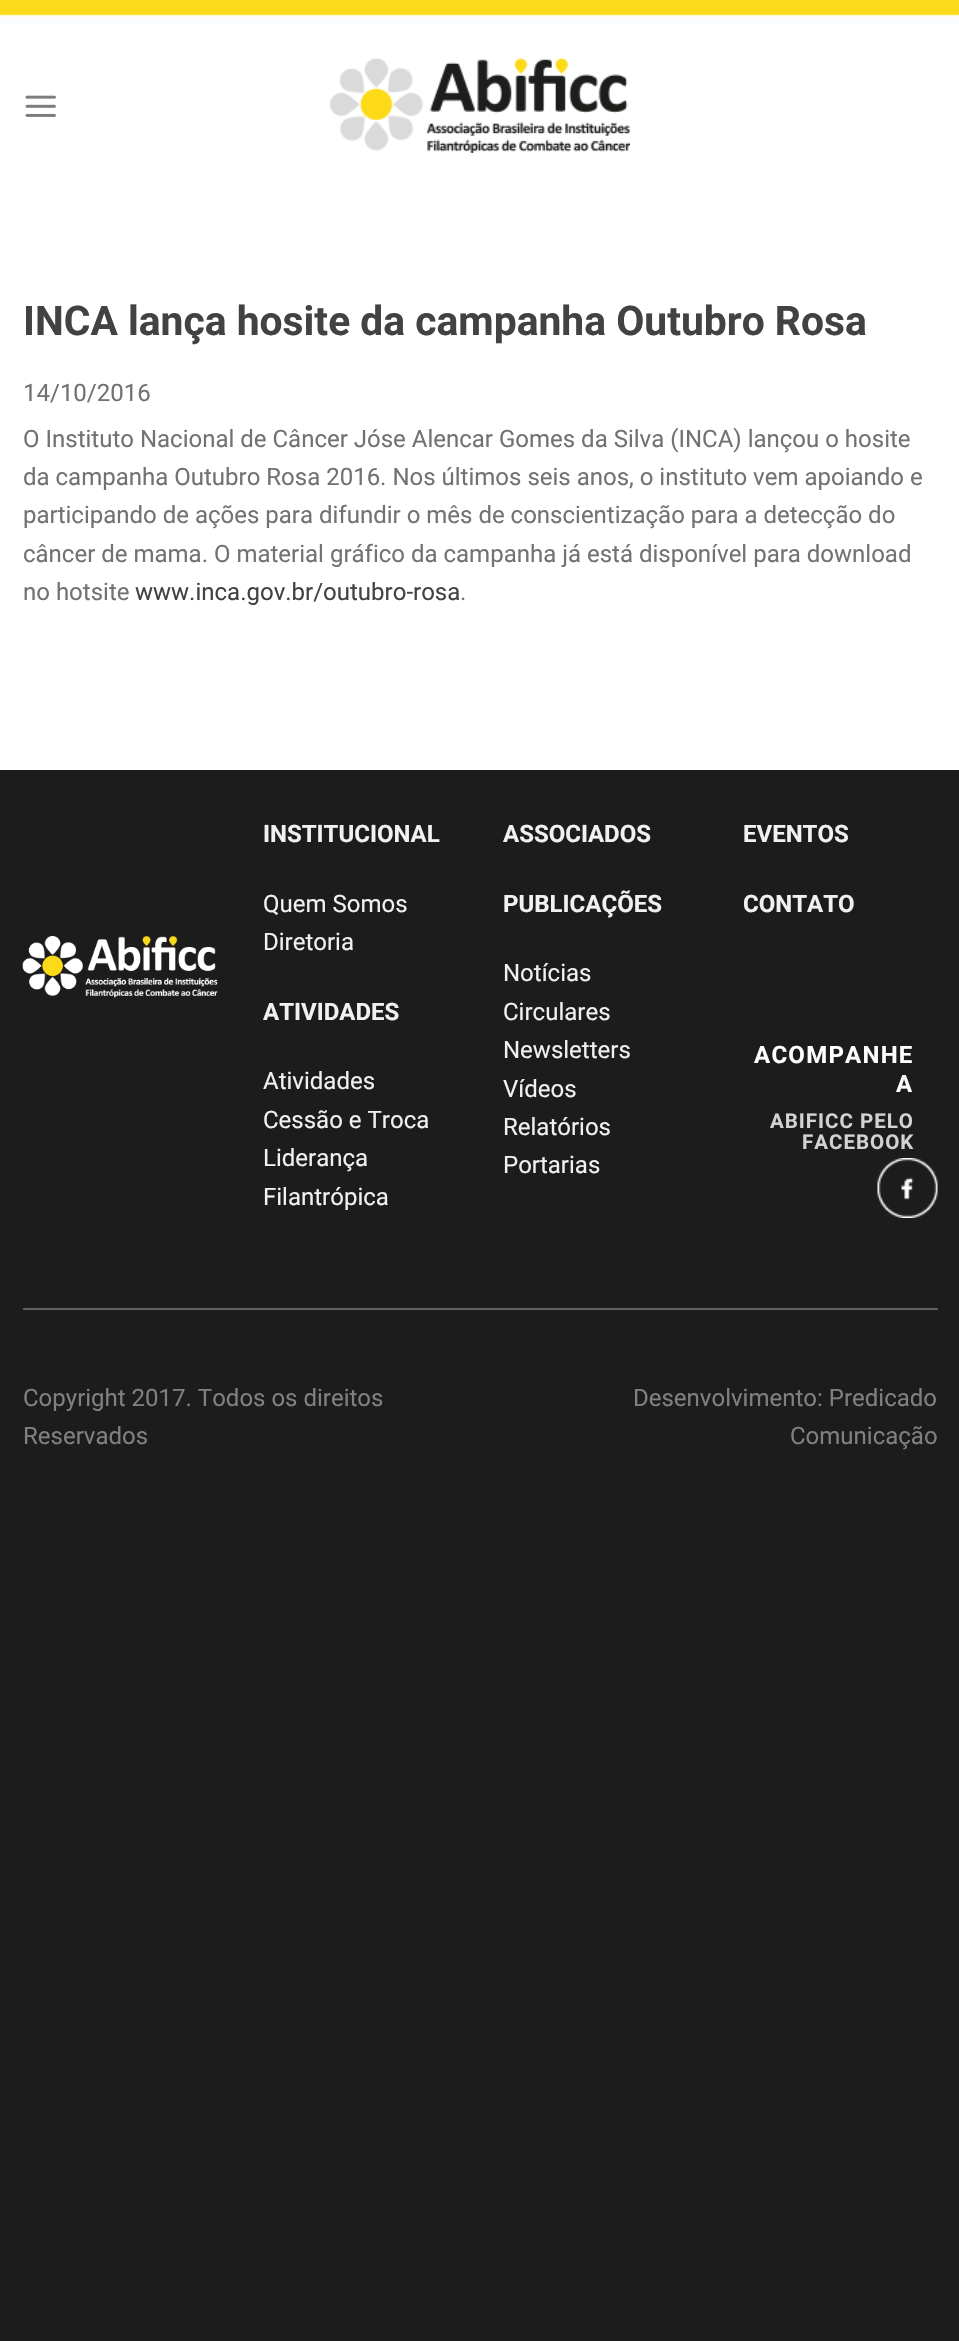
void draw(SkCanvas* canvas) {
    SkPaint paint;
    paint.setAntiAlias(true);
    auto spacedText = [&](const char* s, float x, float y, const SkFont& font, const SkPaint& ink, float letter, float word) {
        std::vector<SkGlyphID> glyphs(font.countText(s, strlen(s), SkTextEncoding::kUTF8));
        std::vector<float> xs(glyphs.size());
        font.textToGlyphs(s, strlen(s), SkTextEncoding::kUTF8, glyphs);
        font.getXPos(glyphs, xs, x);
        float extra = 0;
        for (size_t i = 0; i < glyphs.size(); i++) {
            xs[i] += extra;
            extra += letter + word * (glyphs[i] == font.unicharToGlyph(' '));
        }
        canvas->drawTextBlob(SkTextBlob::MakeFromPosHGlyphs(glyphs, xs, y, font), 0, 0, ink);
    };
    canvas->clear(0xFF1C1C1C);
    paint.setColor(0xFFFFFFFF);
    canvas->drawRect(SkRect::MakeXYWH(0, 24, 959, 746), paint);
    canvas->drawImageRect(SkImages::DeferredFromEncodedData(SkData::MakeFromFileName("img1.png")), SkRect::MakeXYWH(0, 0, 959, 24), SkSamplingOptions());
    canvas->drawImageRect(SkImages::DeferredFromEncodedData(SkData::MakeFromFileName("img2.png")), SkRect::MakeXYWH(25, 95, 31, 22), SkSamplingOptions());
    canvas->drawImageRect(SkImages::DeferredFromEncodedData(SkData::MakeFromFileName("img3.png")), SkRect::MakeXYWH(330, 58, 300, 95), SkSamplingOptions());
    SkFont font1(fontMgr->matchFamilyStyle("Roboto", SkFontStyle::Bold()), 40.8f);
    font1.setSubpixel(true);
    paint.setColor(0xFF424242);
    canvas->drawString("INCA lança hosite da campanha Outubro Rosa", 23, 335, font1, paint);
    SkFont font2(fontMgr->matchFamilyStyle("Roboto", SkFontStyle::Normal()), 24);
    font2.setSubpixel(true);
    paint.setColor(0xFF727272);
    canvas->drawString("14/10/2016", 23, 401, font2, paint);
    canvas->drawString("O Instituto Nacional de Câncer Jóse Alencar Gomes da Silva (INCA) lançou o hosite", 23, 447, font2, paint);
    canvas->drawString("da campanha Outubro Rosa 2016. Nos últimos seis anos, o instituto vem apoiando e", 23, 485, font2, paint);
    canvas->drawString("participando de ações para difundir o mês de conscientização para a detecção do", 23, 523, font2, paint);
    canvas->drawString("câncer de mama. O material gráfico da campanha já está disponível para download", 23, 562, font2, paint);
    canvas->drawString("no hotsite", 23, 600, font2, paint);
    paint.setColor(0xFF424242);
    canvas->drawString("www.inca.gov.br/outubro-rosa", 135, 600, font2, paint);
    paint.setColor(0xFF727272);
    canvas->drawString(".", 460, 600, font2, paint);
    canvas->drawImageRect(SkImages::DeferredFromEncodedData(SkData::MakeFromFileName("img4.png")), SkRect::MakeXYWH(22, 936, 196, 62), SkSamplingOptions());
    SkFont font3(fontMgr->matchFamilyStyle("Roboto", SkFontStyle::Bold()), 24);
    font3.setSubpixel(true);
    paint.setColor(0xFFF1F1F1);
    canvas->drawString("INSTITUCIONAL", 263, 842, font3, paint);
    canvas->drawString("Quem Somos", 263, 912, font2, paint);
    canvas->drawString("Diretoria", 263, 950, font2, paint);
    canvas->drawString("ATIVIDADES", 263, 1020, font3, paint);
    canvas->drawString("Atividades", 263, 1089, font2, paint);
    canvas->drawString("Cessão e Troca", 263, 1128, font2, paint);
    canvas->drawString("Liderança", 263, 1166, font2, paint);
    canvas->drawString("Filantrópica", 263, 1205, font2, paint);
    canvas->drawString("ASSOCIADOS", 503, 842, font3, paint);
    canvas->drawString("PUBLICAÇÕES", 503, 912, font3, paint);
    canvas->drawString("Notícias", 503, 981, font2, paint);
    canvas->drawString("Circulares", 503, 1020, font2, paint);
    canvas->drawString("Newsletters", 503, 1058, font2, paint);
    canvas->drawString("Vídeos", 503, 1097, font2, paint);
    canvas->drawString("Relatórios", 503, 1135, font2, paint);
    canvas->drawString("Portarias", 503, 1173, font2, paint);
    canvas->drawString("EVENTOS", 743, 842, font3, paint);
    canvas->drawString("CONTATO", 743, 912, font3, paint);
    paint.setColor(0xFFFFFFFF);
    spacedText("ACOMPANHE", 754, 1063, font3, paint, 1.25f, 0);
    spacedText("A", 896, 1092, font3, paint, 1.25f, 0);
    SkFont font4(fontMgr->matchFamilyStyle("Roboto", SkFontStyle::Bold()), 20.5f);
    font4.setSubpixel(true);
    paint.setColor(0xFFD2D2D2);
    spacedText("ABIFICC PELO", 770, 1128, font4, paint, 1, 0);
    spacedText("FACEBOOK", 802, 1149, font4, paint, 1, 0);
    canvas->drawImageRect(SkImages::DeferredFromEncodedData(SkData::MakeFromFileName("img5.png")), SkRect::MakeXYWH(877, 1158, 61, 60), SkSamplingOptions());
    paint.setColor(0xFF606060);
    canvas->drawRect(SkRect::MakeXYWH(23, 1308, 915, 2), paint);
    paint.setColor(0xFF808080);
    canvas->drawString("Copyright 2017. Todos os direitos", 23, 1406, font2, paint);
    canvas->drawString("Reservados", 23, 1444, font2, paint);
    canvas->drawString("Desenvolvimento: Predicado", 633, 1406, font2, paint);
    canvas->drawString("Comunicação", 790, 1444, font2, paint);
}
